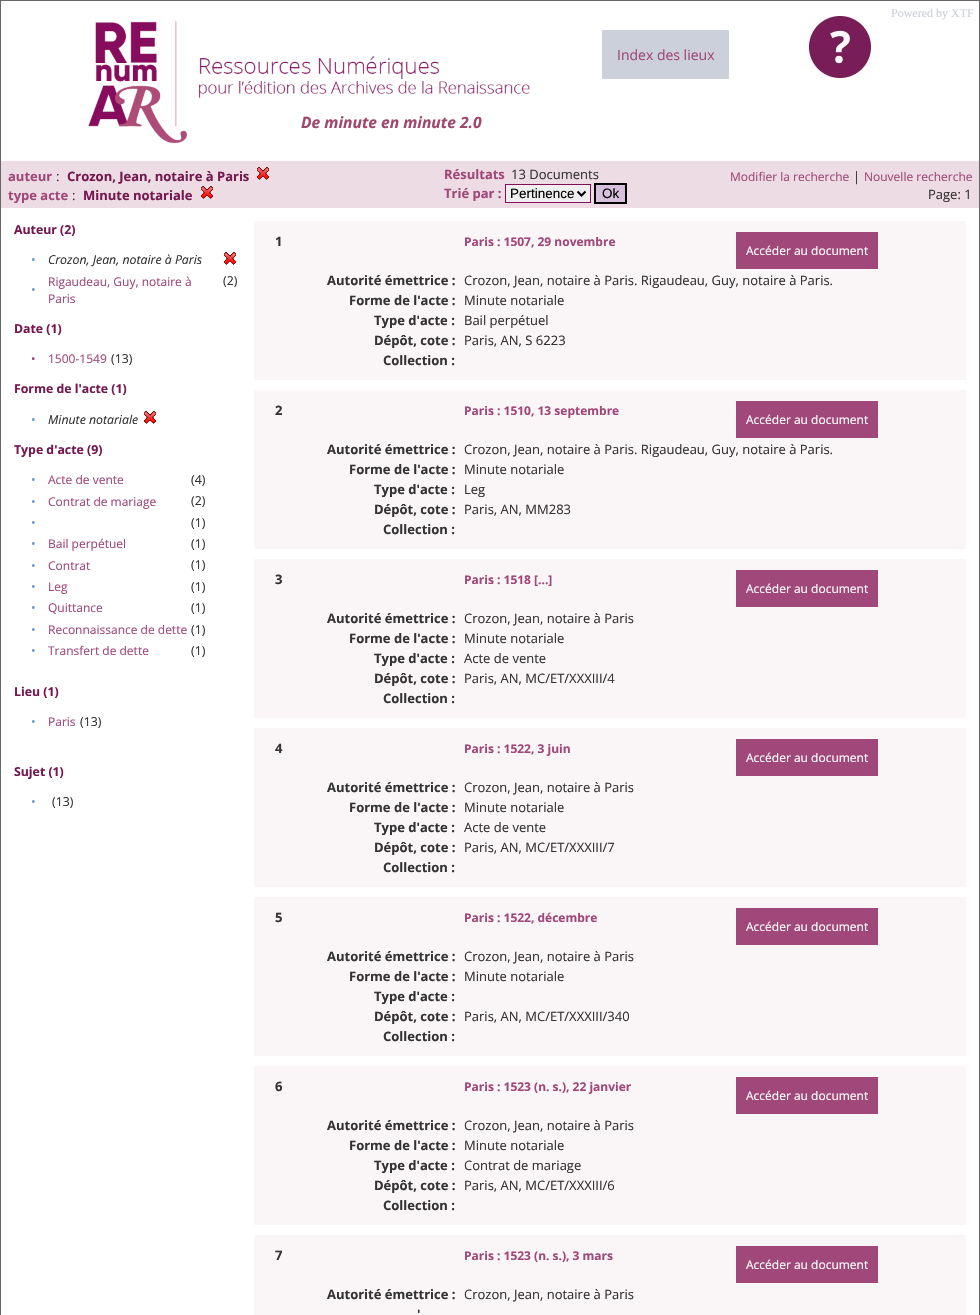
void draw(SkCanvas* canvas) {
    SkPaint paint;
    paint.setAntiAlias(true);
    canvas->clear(0xFF666666);
    paint.setColor(0xFFFFFFFF);
    canvas->drawRect(SkRect::MakeXYWH(1, 1, 978, 160), paint);
    SkFont font1(fontMgr->matchFamilyStyle("Liberation Serif", SkFontStyle::Normal()), 12);
    font1.setSubpixel(true);
    paint.setColor(0xFFCCD0DB);
    canvas->drawString("Powered by XTF", 891, 17, font1, paint);
    canvas->drawImageRect(SkImages::DeferredFromEncodedData(SkData::MakeFromFileName("img1.png")), SkRect::MakeXYWH(88, 21, 442, 123), SkSamplingOptions());
    canvas->drawRect(SkRect::MakeXYWH(602, 30, 127, 49), paint);
    SkFont font2(fontMgr->matchFamilyStyle("Open Sans", SkFontStyle::Normal()), 14);
    font2.setSubpixel(true);
    paint.setColor(0xFF9F4879);
    canvas->drawString("Index des lieux", 617, 60, font2, paint);
    canvas->drawImageRect(SkImages::DeferredFromEncodedData(SkData::MakeFromFileName("img2.png")), SkRect::MakeXYWH(809, 16, 62, 62), SkSamplingOptions());
    SkFont font3(fontMgr->matchFamilyStyle("Open Sans", SkFontStyle::BoldItalic()), 15.6f);
    font3.setSubpixel(true);
    paint.setColor(0xFF9F486C);
    canvas->drawString("De minute en minute 2.0", 301, 128, font3, paint);
    paint.setColor(0xFFEDDCE3);
    canvas->drawRect(SkRect::MakeXYWH(1, 161, 978, 47), paint);
    SkFont font4(fontMgr->matchFamilyStyle("Open Sans", SkFontStyle::Bold()), 13);
    font4.setSubpixel(true);
    paint.setColor(0xFF9F4879);
    canvas->drawString("auteur", 8, 181, font4, paint);
    SkFont font5(fontMgr->matchFamilyStyle("Open Sans", SkFontStyle::Normal()), 13);
    font5.setSubpixel(true);
    paint.setColor(0xFF333333);
    canvas->drawString(":", 56, 181, font5, paint);
    paint.setColor(0xFF74184F);
    canvas->drawString("Crozon, Jean, notaire à Paris", 67, 181, font4, paint);
    canvas->drawImageRect(SkImages::DeferredFromEncodedData(SkData::MakeFromFileName("img3.png")), SkRect::MakeXYWH(257, 167, 12, 13), SkSamplingOptions());
    paint.setColor(0xFF9F4879);
    canvas->drawString("type acte", 8, 200, font4, paint);
    paint.setColor(0xFF333333);
    canvas->drawString(":", 72, 200, font5, paint);
    paint.setColor(0xFF74184F);
    canvas->drawString("Minute notariale", 83, 200, font4, paint);
    canvas->drawImageRect(SkImages::DeferredFromEncodedData(SkData::MakeFromFileName("img3.png")), SkRect::MakeXYWH(201, 186, 12, 13), SkSamplingOptions());
    paint.setColor(0xFF9F4879);
    canvas->drawString("Résultats", 444, 179, font4, paint);
    paint.setColor(0xFF333333);
    canvas->drawString("13 Documents", 511, 179, font5, paint);
    paint.setColor(0xFF9F4879);
    canvas->drawString("Trié par :", 444, 198, font4, paint);
    paint.setColor(0xFFEFEFEF);
    canvas->drawRect(SkRect::MakeXYWH(505.5f, 184.5f, 85, 18), paint);
    paint.setStyle(SkPaint::kStroke_Style);
    paint.setStrokeWidth(1);
    paint.setColor(0xFF880C5E);
    canvas->drawRect(SkRect::MakeXYWH(505.5f, 184.5f, 85, 18), paint);
    paint.setStrokeWidth(2);
    paint.setColor(0xFF000000);
    canvas->drawPath(SkPathBuilder().moveTo(577.5f, 191.5f).lineTo(581.5f, 195.5f).lineTo(585.5f, 191.5f).detach(), paint);
    SkFont font6(fontMgr->matchFamilyStyle("Liberation Sans", SkFontStyle::Normal()), 13.5f);
    font6.setSubpixel(true);
    paint.setStyle(SkPaint::kFill_Style);
    canvas->drawString("Pertinence", 510, 198, font6, paint);
    paint.setColor(0xFFD6C0DB);
    canvas->drawRect(SkRect::MakeXYWH(595, 184, 31, 19), paint);
    paint.setStyle(SkPaint::kStroke_Style);
    paint.setColor(0xFF000000);
    canvas->drawRect(SkRect::MakeXYWH(595, 184, 31, 19), paint);
    paint.setStyle(SkPaint::kFill_Style);
    canvas->drawString("Ok", 602, 198, font6, paint);
    SkFont font7(fontMgr->matchFamilyStyle("Open Sans", SkFontStyle::Normal()), 12);
    font7.setSubpixel(true);
    paint.setColor(0xFF9F4879);
    canvas->drawString("Modifier la recherche", 730, 181, font7, paint);
    paint.setColor(0xFF333333);
    canvas->drawString("|", 853, 181, font5, paint);
    paint.setColor(0xFF9F4879);
    canvas->drawString("Nouvelle recherche", 864, 181, font7, paint);
    paint.setColor(0xFF333333);
    canvas->drawString("Page: 1", 928, 199, font5, paint);
    paint.setColor(0xFFFFFFFF);
    canvas->drawRect(SkRect::MakeXYWH(1, 208, 978, 1107), paint);
    SkFont font8(fontMgr->matchFamilyStyle("Open Sans", SkFontStyle::Bold()), 12.3f);
    font8.setSubpixel(true);
    paint.setColor(0xFF74184F);
    canvas->drawString("Auteur (2)", 14, 234, font8, paint);
    SkFont font9(fontMgr->matchFamilyStyle("Open Sans", SkFontStyle::Normal()), 12.3f);
    font9.setSubpixel(true);
    paint.setColor(0xFF6699CC);
    canvas->drawString("•", 31, 264, font9, paint);
    SkFont font10(fontMgr->matchFamilyStyle("Open Sans", SkFontStyle::Italic()), 12.3f);
    font10.setSubpixel(true);
    paint.setColor(0xFF333333);
    canvas->drawString("Crozon, Jean, notaire à Paris", 48, 264, font10, paint);
    canvas->drawImageRect(SkImages::DeferredFromEncodedData(SkData::MakeFromFileName("img4.png")), SkRect::MakeXYWH(224, 252, 12, 13), SkSamplingOptions());
    paint.setColor(0xFF9F4879);
    canvas->drawString("Rigaudeau, Guy, notaire à", 48, 286, font7, paint);
    canvas->drawString("Paris", 48, 303, font7, paint);
    paint.setColor(0xFF333333);
    canvas->drawString("(2)", 223, 285, font9, paint);
    paint.setColor(0xFF6699CC);
    canvas->drawString("•", 31, 294, font9, paint);
    paint.setColor(0xFF74184F);
    canvas->drawString("Date (1)", 14, 333, font8, paint);
    paint.setColor(0xFF9F4879);
    canvas->drawString("•", 31, 363, font7, paint);
    canvas->drawString("1500-1549", 48, 363, font7, paint);
    paint.setColor(0xFF333333);
    canvas->drawString("(13)", 111, 363, font9, paint);
    paint.setColor(0xFF74184F);
    canvas->drawString("Forme de l'acte (1)", 14, 393, font8, paint);
    paint.setColor(0xFF6699CC);
    canvas->drawString("•", 31, 424, font9, paint);
    paint.setColor(0xFF333333);
    canvas->drawString("Minute notariale", 48, 424, font10, paint);
    canvas->drawImageRect(SkImages::DeferredFromEncodedData(SkData::MakeFromFileName("img4.png")), SkRect::MakeXYWH(144, 411, 12, 13), SkSamplingOptions());
    paint.setColor(0xFF74184F);
    canvas->drawString("Type d'acte (9)", 14, 454, font8, paint);
    paint.setColor(0xFF6699CC);
    canvas->drawString("•", 31, 484, font9, paint);
    paint.setColor(0xFF9F4879);
    canvas->drawString("Acte de vente", 48, 484, font7, paint);
    paint.setColor(0xFF333333);
    canvas->drawString("(4)", 191, 484, font9, paint);
    paint.setColor(0xFF6699CC);
    canvas->drawString("•", 31, 506, font9, paint);
    paint.setColor(0xFF9F4879);
    canvas->drawString("Contrat de mariage", 48, 506, font7, paint);
    paint.setColor(0xFF333333);
    canvas->drawString("(2)", 191, 505, font9, paint);
    paint.setColor(0xFF6699CC);
    canvas->drawString("•", 31, 527, font9, paint);
    paint.setColor(0xFF333333);
    canvas->drawString("(1)", 191, 527, font9, paint);
    paint.setColor(0xFF6699CC);
    canvas->drawString("•", 31, 548, font9, paint);
    paint.setColor(0xFF9F4879);
    canvas->drawString("Bail perpétuel", 48, 548, font7, paint);
    paint.setColor(0xFF333333);
    canvas->drawString("(1)", 191, 548, font9, paint);
    paint.setColor(0xFF6699CC);
    canvas->drawString("•", 31, 570, font9, paint);
    paint.setColor(0xFF9F4879);
    canvas->drawString("Contrat", 48, 570, font7, paint);
    paint.setColor(0xFF333333);
    canvas->drawString("(1)", 191, 569, font9, paint);
    paint.setColor(0xFF6699CC);
    canvas->drawString("•", 31, 591, font9, paint);
    paint.setColor(0xFF9F4879);
    canvas->drawString("Leg", 48, 591, font7, paint);
    paint.setColor(0xFF333333);
    canvas->drawString("(1)", 191, 591, font9, paint);
    paint.setColor(0xFF6699CC);
    canvas->drawString("•", 31, 612, font9, paint);
    paint.setColor(0xFF9F4879);
    canvas->drawString("Quittance", 48, 612, font7, paint);
    paint.setColor(0xFF333333);
    canvas->drawString("(1)", 191, 612, font9, paint);
    paint.setColor(0xFF6699CC);
    canvas->drawString("•", 31, 634, font9, paint);
    paint.setColor(0xFF9F4879);
    canvas->drawString("Reconnaissance de dette", 48, 634, font7, paint);
    paint.setColor(0xFF333333);
    canvas->drawString("(1)", 191, 634, font9, paint);
    paint.setColor(0xFF6699CC);
    canvas->drawString("•", 31, 655, font9, paint);
    paint.setColor(0xFF9F4879);
    canvas->drawString("Transfert de dette", 48, 655, font7, paint);
    paint.setColor(0xFF333333);
    canvas->drawString("(1)", 191, 655, font9, paint);
    paint.setColor(0xFF74184F);
    canvas->drawString("Lieu (1)", 14, 696, font8, paint);
    paint.setColor(0xFF6699CC);
    canvas->drawString("•", 31, 726, font9, paint);
    paint.setColor(0xFF9F4879);
    canvas->drawString("Paris", 48, 726, font7, paint);
    paint.setColor(0xFF333333);
    canvas->drawString("(13)", 80, 726, font9, paint);
    paint.setColor(0xFF74184F);
    canvas->drawString("Sujet (1)", 14, 776, font8, paint);
    paint.setColor(0xFF6699CC);
    canvas->drawString("•", 31, 806, font9, paint);
    paint.setColor(0xFF333333);
    canvas->drawString("(13)", 52, 806, font9, paint);
    paint.setColor(0xFFFAF5F7);
    canvas->drawRect(SkRect::MakeXYWH(254, 221, 712, 159), paint);
    paint.setColor(0xFF333333);
    canvas->drawString("1", 275, 246, font4, paint);
    SkFont font11(fontMgr->matchFamilyStyle("Open Sans", SkFontStyle::Bold()), 12);
    font11.setSubpixel(true);
    paint.setColor(0xFF9F4879);
    canvas->drawString("Paris : 1507, 29 novembre", 464, 246, font11, paint);
    canvas->drawRect(SkRect::MakeXYWH(736, 232, 142, 37), paint);
    paint.setColor(0xFFFFFFFF);
    canvas->drawString("Accéder au document", 746, 255, font7, paint);
    paint.setColor(0xFF333333);
    canvas->drawString("Autorité émettrice :", 327, 285, font4, paint);
    canvas->drawString("Crozon, Jean, notaire à Paris. Rigaudeau, Guy, notaire à Paris.", 464, 285, font5, paint);
    canvas->drawString("Forme de l'acte :", 349, 305, font4, paint);
    canvas->drawString("Minute notariale", 464, 305, font5, paint);
    canvas->drawString("Type d'acte :", 374, 325, font4, paint);
    canvas->drawString("Bail perpétuel", 464, 325, font5, paint);
    canvas->drawString("Dépôt, cote :", 374, 345, font4, paint);
    canvas->drawString("Paris, AN, S 6223", 464, 345, font5, paint);
    canvas->drawString("Collection :", 383, 365, font4, paint);
    paint.setColor(0xFFFAF5F7);
    canvas->drawRect(SkRect::MakeXYWH(254, 390, 712, 159), paint);
    paint.setColor(0xFF333333);
    canvas->drawString("2", 275, 415, font4, paint);
    paint.setColor(0xFF9F4879);
    canvas->drawString("Paris : 1510, 13 septembre", 464, 415, font11, paint);
    canvas->drawRect(SkRect::MakeXYWH(736, 401, 142, 37), paint);
    paint.setColor(0xFFFFFFFF);
    canvas->drawString("Accéder au document", 746, 424, font7, paint);
    paint.setColor(0xFF333333);
    canvas->drawString("Autorité émettrice :", 327, 454, font4, paint);
    canvas->drawString("Crozon, Jean, notaire à Paris. Rigaudeau, Guy, notaire à Paris.", 464, 454, font5, paint);
    canvas->drawString("Forme de l'acte :", 349, 474, font4, paint);
    canvas->drawString("Minute notariale", 464, 474, font5, paint);
    canvas->drawString("Type d'acte :", 374, 494, font4, paint);
    canvas->drawString("Leg", 464, 494, font5, paint);
    canvas->drawString("Dépôt, cote :", 374, 514, font4, paint);
    canvas->drawString("Paris, AN, MM283", 464, 514, font5, paint);
    canvas->drawString("Collection :", 383, 534, font4, paint);
    paint.setColor(0xFFFAF5F7);
    canvas->drawRect(SkRect::MakeXYWH(254, 559, 712, 159), paint);
    paint.setColor(0xFF333333);
    canvas->drawString("3", 275, 584, font4, paint);
    paint.setColor(0xFF9F4879);
    canvas->drawString("Paris : 1518 [...]", 464, 584, font11, paint);
    canvas->drawRect(SkRect::MakeXYWH(736, 570, 142, 37), paint);
    paint.setColor(0xFFFFFFFF);
    canvas->drawString("Accéder au document", 746, 593, font7, paint);
    paint.setColor(0xFF333333);
    canvas->drawString("Autorité émettrice :", 327, 623, font4, paint);
    canvas->drawString("Crozon, Jean, notaire à Paris", 464, 623, font5, paint);
    canvas->drawString("Forme de l'acte :", 349, 643, font4, paint);
    canvas->drawString("Minute notariale", 464, 643, font5, paint);
    canvas->drawString("Type d'acte :", 374, 663, font4, paint);
    canvas->drawString("Acte de vente", 464, 663, font5, paint);
    canvas->drawString("Dépôt, cote :", 374, 683, font4, paint);
    canvas->drawString("Paris, AN, MC/ET/XXXIII/4", 464, 683, font5, paint);
    canvas->drawString("Collection :", 383, 703, font4, paint);
    paint.setColor(0xFFFAF5F7);
    canvas->drawRect(SkRect::MakeXYWH(254, 728, 712, 159), paint);
    paint.setColor(0xFF333333);
    canvas->drawString("4", 275, 753, font4, paint);
    paint.setColor(0xFF9F4879);
    canvas->drawString("Paris : 1522, 3 juin", 464, 753, font11, paint);
    canvas->drawRect(SkRect::MakeXYWH(736, 739, 142, 37), paint);
    paint.setColor(0xFFFFFFFF);
    canvas->drawString("Accéder au document", 746, 762, font7, paint);
    paint.setColor(0xFF333333);
    canvas->drawString("Autorité émettrice :", 327, 792, font4, paint);
    canvas->drawString("Crozon, Jean, notaire à Paris", 464, 792, font5, paint);
    canvas->drawString("Forme de l'acte :", 349, 812, font4, paint);
    canvas->drawString("Minute notariale", 464, 812, font5, paint);
    canvas->drawString("Type d'acte :", 374, 832, font4, paint);
    canvas->drawString("Acte de vente", 464, 832, font5, paint);
    canvas->drawString("Dépôt, cote :", 374, 852, font4, paint);
    canvas->drawString("Paris, AN, MC/ET/XXXIII/7", 464, 852, font5, paint);
    canvas->drawString("Collection :", 383, 872, font4, paint);
    paint.setColor(0xFFFAF5F7);
    canvas->drawRect(SkRect::MakeXYWH(254, 897, 712, 159), paint);
    paint.setColor(0xFF333333);
    canvas->drawString("5", 275, 922, font4, paint);
    paint.setColor(0xFF9F4879);
    canvas->drawString("Paris : 1522, décembre", 464, 922, font11, paint);
    canvas->drawRect(SkRect::MakeXYWH(736, 908, 142, 37), paint);
    paint.setColor(0xFFFFFFFF);
    canvas->drawString("Accéder au document", 746, 931, font7, paint);
    paint.setColor(0xFF333333);
    canvas->drawString("Autorité émettrice :", 327, 961, font4, paint);
    canvas->drawString("Crozon, Jean, notaire à Paris", 464, 961, font5, paint);
    canvas->drawString("Forme de l'acte :", 349, 981, font4, paint);
    canvas->drawString("Minute notariale", 464, 981, font5, paint);
    canvas->drawString("Type d'acte :", 374, 1001, font4, paint);
    canvas->drawString("Dépôt, cote :", 374, 1021, font4, paint);
    canvas->drawString("Paris, AN, MC/ET/XXXIII/340", 464, 1021, font5, paint);
    canvas->drawString("Collection :", 383, 1041, font4, paint);
    paint.setColor(0xFFFAF5F7);
    canvas->drawRect(SkRect::MakeXYWH(254, 1066, 712, 159), paint);
    paint.setColor(0xFF333333);
    canvas->drawString("6", 275, 1091, font4, paint);
    paint.setColor(0xFF9F4879);
    canvas->drawString("Paris : 1523 (n. s.), 22 janvier", 464, 1091, font11, paint);
    canvas->drawRect(SkRect::MakeXYWH(736, 1077, 142, 37), paint);
    paint.setColor(0xFFFFFFFF);
    canvas->drawString("Accéder au document", 746, 1100, font7, paint);
    paint.setColor(0xFF333333);
    canvas->drawString("Autorité émettrice :", 327, 1130, font4, paint);
    canvas->drawString("Crozon, Jean, notaire à Paris", 464, 1130, font5, paint);
    canvas->drawString("Forme de l'acte :", 349, 1150, font4, paint);
    canvas->drawString("Minute notariale", 464, 1150, font5, paint);
    canvas->drawString("Type d'acte :", 374, 1170, font4, paint);
    canvas->drawString("Contrat de mariage", 464, 1170, font5, paint);
    canvas->drawString("Dépôt, cote :", 374, 1190, font4, paint);
    canvas->drawString("Paris, AN, MC/ET/XXXIII/6", 464, 1190, font5, paint);
    canvas->drawString("Collection :", 383, 1210, font4, paint);
    paint.setColor(0xFFFAF5F7);
    canvas->drawRect(SkRect::MakeXYWH(254, 1235, 712, 80), paint);
    paint.setColor(0xFF333333);
    canvas->drawString("7", 275, 1260, font4, paint);
    paint.setColor(0xFF9F4879);
    canvas->drawString("Paris : 1523 (n. s.), 3 mars", 464, 1260, font11, paint);
    canvas->drawRect(SkRect::MakeXYWH(736, 1246, 142, 37), paint);
    paint.setColor(0xFFFFFFFF);
    canvas->drawString("Accéder au document", 746, 1269, font7, paint);
    paint.setColor(0xFF333333);
    canvas->drawString("Autorité émettrice :", 327, 1299, font4, paint);
    canvas->drawString("Crozon, Jean, notaire à Paris", 464, 1299, font5, paint);
    canvas->drawString("'", 417, 1319, font4, paint);
}
